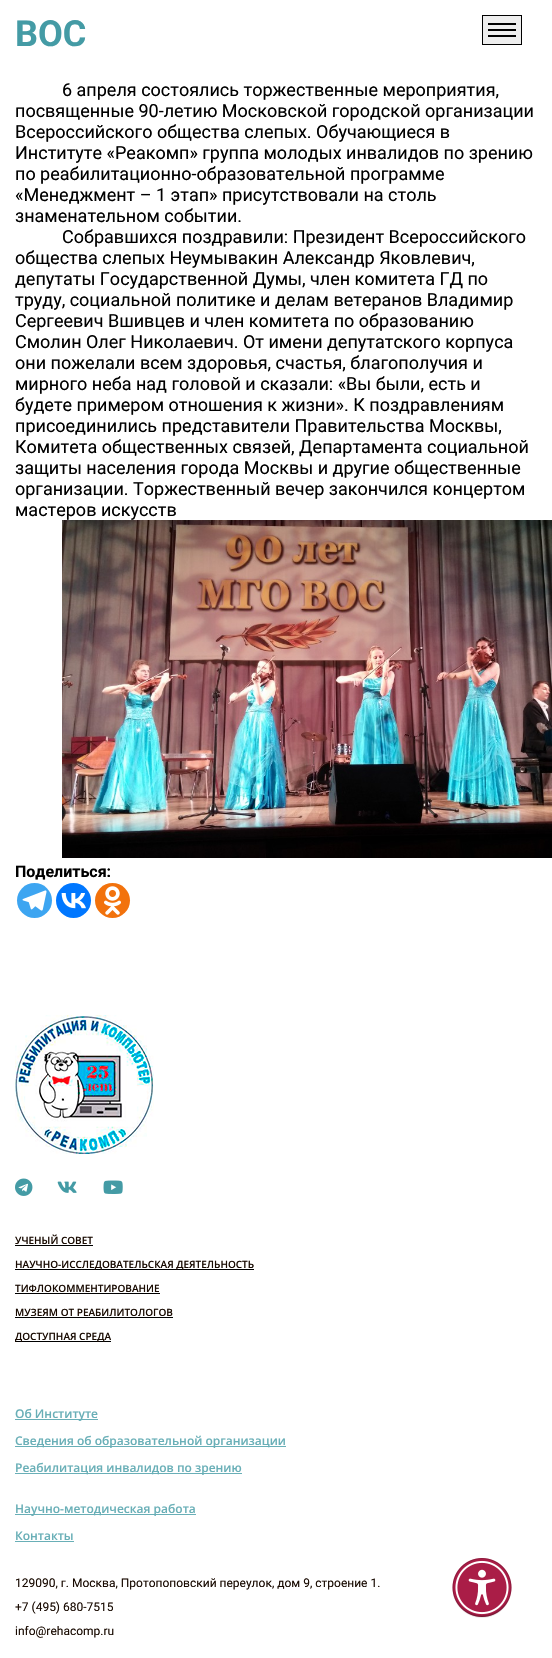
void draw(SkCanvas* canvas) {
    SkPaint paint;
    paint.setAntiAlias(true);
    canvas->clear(0xFFFFFFFF);
    paint.setColor(0xFFEEEEEE);
    canvas->drawRect(SkRect::MakeXYWH(482.5f, 15.5f, 39, 29), paint);
    paint.setStyle(SkPaint::kStroke_Style);
    paint.setStrokeWidth(1);
    paint.setColor(0xFF000000);
    canvas->drawRect(SkRect::MakeXYWH(482.5f, 15.5f, 39, 29), paint);
    paint.setStyle(SkPaint::kFill_Style);
    canvas->drawRect(SkRect::MakeXYWH(488, 23, 28, 2), paint);
    canvas->drawRect(SkRect::MakeXYWH(488, 29, 28, 2), paint);
    canvas->drawRect(SkRect::MakeXYWH(488, 35, 28, 2), paint);
    SkFont font1(fontMgr->matchFamilyStyle("Roboto", SkFontStyle::Bold()), 36);
    font1.setSubpixel(true);
    paint.setColor(0xFF449BA5);
    canvas->drawString("ВОС", 15, 46, font1, paint);
    SkFont font2(fontMgr->matchFamilyStyle("Roboto", SkFontStyle::Normal()), 18);
    font2.setSubpixel(true);
    paint.setColor(0xFF000000);
    canvas->drawString("6 апреля состоялись торжественные мероприятия,", 62, 96, font2, paint);
    canvas->drawString("посвященные 90-летию Московской городской организации", 15, 117, font2, paint);
    canvas->drawString("Всероссийского общества слепых. Обучающиеся в", 15, 138, font2, paint);
    canvas->drawString("Институте «Реакомп» группа молодых инвалидов по зрению", 15, 159, font2, paint);
    canvas->drawString("по реабилитационно-образовательной программе", 15, 180, font2, paint);
    canvas->drawString("«Менеджмент – 1 этап» присутствовали на столь", 15, 201, font2, paint);
    canvas->drawString("знаменательном событии.", 15, 222, font2, paint);
    canvas->drawString("Собравшихся поздравили: Президент Всероссийского", 62, 243, font2, paint);
    canvas->drawString("общества слепых Неумывакин Александр Яковлевич,", 15, 264, font2, paint);
    canvas->drawString("депутаты Государственной Думы, член комитета ГД по", 15, 285, font2, paint);
    canvas->drawString("труду, социальной политике и делам ветеранов Владимир", 15, 306, font2, paint);
    canvas->drawString("Сергеевич Вшивцев и член комитета по образованию", 15, 327, font2, paint);
    canvas->drawString("Смолин Олег Николаевич. От имени депутатского корпуса", 15, 348, font2, paint);
    canvas->drawString("они пожелали всем здоровья, счастья, благополучия и", 15, 369, font2, paint);
    canvas->drawString("мирного неба над головой и сказали: «Вы были, есть и", 15, 390, font2, paint);
    canvas->drawString("будете примером отношения к жизни». К поздравлениям", 15, 411, font2, paint);
    canvas->drawString("присоединились представители Правительства Москвы,", 15, 432, font2, paint);
    canvas->drawString("Комитета общественных связей, Департамента социальной", 15, 453, font2, paint);
    canvas->drawString("защиты населения города Москвы и другие общественные", 15, 474, font2, paint);
    canvas->drawString("организации. Торжественный вечер закончился концертом", 15, 495, font2, paint);
    canvas->drawString("мастеров искусств", 15, 516, font2, paint);
    canvas->drawImageRect(SkImages::DeferredFromEncodedData(SkData::MakeFromFileName("img1.png")), SkRect::MakeXYWH(62, 520, 490, 338), SkSamplingOptions());
    SkFont font3(fontMgr->matchFamilyStyle("Roboto", SkFontStyle::Bold()), 16);
    font3.setSubpixel(true);
    canvas->drawString("Поделиться:", 15, 877, font3, paint);
    paint.setColor(0xFF3DA5F1);
    canvas->drawCircle(34.5f, 900.5f, 17.5f, paint);
    canvas->drawImageRect(SkImages::DeferredFromEncodedData(SkData::MakeFromFileName("img2.png")), SkRect::MakeXYWH(22, 890, 25, 21), SkSamplingOptions());
    paint.setColor(0xFF0077FF);
    canvas->drawCircle(73.5f, 900.5f, 17.5f, paint);
    canvas->drawImageRect(SkImages::DeferredFromEncodedData(SkData::MakeFromFileName("img3.png")), SkRect::MakeXYWH(61, 893, 25, 16), SkSamplingOptions());
    paint.setColor(0xFFF2720C);
    canvas->drawCircle(112.5f, 900.5f, 17.5f, paint);
    canvas->drawImageRect(SkImages::DeferredFromEncodedData(SkData::MakeFromFileName("img4.png")), SkRect::MakeXYWH(104, 886, 17, 29), SkSamplingOptions());
    canvas->drawImageRect(SkImages::DeferredFromEncodedData(SkData::MakeFromFileName("img5.png")), SkRect::MakeXYWH(15, 1015, 139, 139), SkSamplingOptions());
    canvas->drawImageRect(SkImages::DeferredFromEncodedData(SkData::MakeFromFileName("img6.png")), SkRect::MakeXYWH(15, 1178, 18, 18), SkSamplingOptions());
    canvas->drawImageRect(SkImages::DeferredFromEncodedData(SkData::MakeFromFileName("img7.png")), SkRect::MakeXYWH(57, 1181, 20, 12), SkSamplingOptions());
    canvas->drawImageRect(SkImages::DeferredFromEncodedData(SkData::MakeFromFileName("img8.png")), SkRect::MakeXYWH(103, 1180, 20, 14), SkSamplingOptions());
    SkFont font4(fontMgr->matchFamilyStyle("Open Sans", SkFontStyle(600, SkFontStyle::kNormal_Width, SkFontStyle::kUpright_Slant)), 10);
    font4.setSubpixel(true);
    paint.setColor(0xFF190B02);
    canvas->drawString("УЧЕНЫЙ СОВЕТ", 15, 1244, font4, paint);
    paint.setColor(0xFF000000);
    canvas->drawRect(SkRect::MakeXYWH(15, 1245, 78, 1), paint);
    canvas->drawRect(SkRect::MakeXYWH(15, 1269, 239, 1), paint);
    paint.setColor(0xFF190B02);
    canvas->drawString("НАУЧНО-ИССЛЕДОВАТЕЛЬСКАЯ ДЕЯТЕЛЬНОСТЬ", 15, 1268, font4, paint);
    canvas->drawString("ТИФЛОКОММЕНТИРОВАНИЕ", 15, 1292, font4, paint);
    paint.setColor(0xFF000000);
    canvas->drawRect(SkRect::MakeXYWH(15, 1293, 145, 1), paint);
    paint.setColor(0xFF190B02);
    canvas->drawString("МУЗЕЯМ ОТ РЕАБИЛИТОЛОГОВ", 15, 1316, font4, paint);
    paint.setColor(0xFF000000);
    canvas->drawRect(SkRect::MakeXYWH(15, 1317, 158, 1), paint);
    canvas->drawRect(SkRect::MakeXYWH(15, 1341, 96, 1), paint);
    paint.setColor(0xFF190B02);
    canvas->drawString("ДОСТУПНАЯ СРЕДА", 15, 1340, font4, paint);
    paint.setColor(0xFF69AFB7);
    canvas->drawRect(SkRect::MakeXYWH(15, 1419, 83, 1), paint);
    SkFont font5(fontMgr->matchFamilyStyle("Open Sans", SkFontStyle(600, SkFontStyle::kNormal_Width, SkFontStyle::kUpright_Slant)), 12);
    font5.setSubpixel(true);
    canvas->drawString("Об Институте", 15, 1418, font5, paint);
    canvas->drawRect(SkRect::MakeXYWH(15, 1446, 271, 1), paint);
    canvas->drawString("Сведения об образовательной организации", 15, 1445, font5, paint);
    canvas->drawRect(SkRect::MakeXYWH(15, 1473, 227, 1), paint);
    canvas->drawString("Реабилитация инвалидов по зрению", 15, 1472, font5, paint);
    canvas->drawRect(SkRect::MakeXYWH(15, 1514, 181, 1), paint);
    canvas->drawString("Научно-методическая работа", 15, 1513, font5, paint);
    canvas->drawString("Контакты", 15, 1540, font5, paint);
    canvas->drawRect(SkRect::MakeXYWH(15, 1541, 59, 1), paint);
    SkFont font6(fontMgr->matchFamilyStyle("Roboto", SkFontStyle::Normal()), 12);
    font6.setSubpixel(true);
    paint.setColor(0xFF190B02);
    canvas->drawString("129090, г. Москва, Протопоповский переулок, дом 9, строение 1.", 15, 1587, font6, paint);
    canvas->drawString("+7 (495) 680-7515", 15, 1611, font6, paint);
    canvas->drawString("info@rehacomp.ru", 15, 1635, font6, paint);
    canvas->drawImageRect(SkImages::DeferredFromEncodedData(SkData::MakeFromFileName("img9.png")), SkRect::MakeXYWH(452, 1558, 60, 60), SkSamplingOptions());
}
